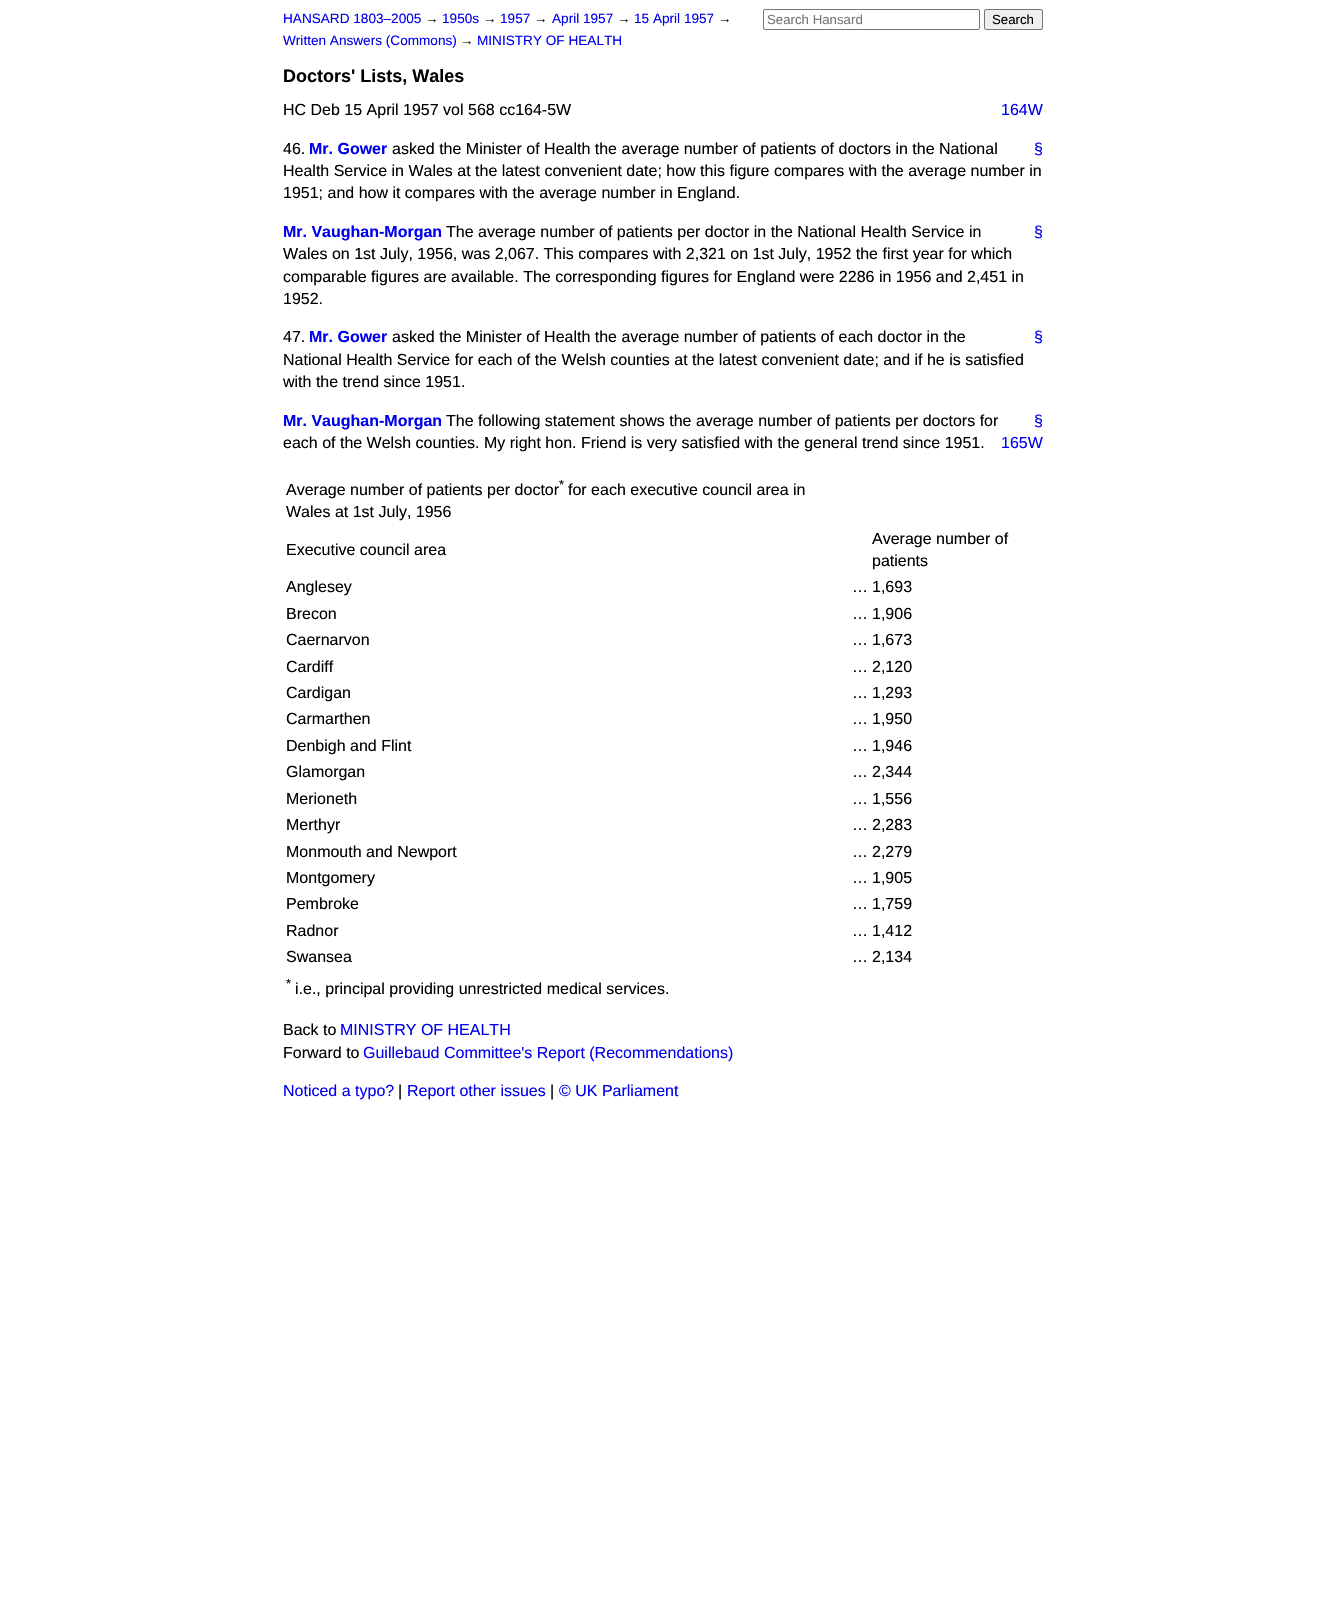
void draw(SkCanvas* canvas) {
    SkPaint paint;
    paint.setAntiAlias(true);
    canvas->clear(0xFFFFFFFF);
    SkFont font1(fontMgr->matchFamilyStyle("Liberation Sans", SkFontStyle::Normal()), 13.6f);
    font1.setSubpixel(true);
    paint.setColor(0xFF0000EE);
    canvas->drawString("HANSARD 1803–2005", 283, 23, font1, paint);
    paint.setColor(0xFF000000);
    canvas->drawString("→", 425, 23, font1, paint);
    paint.setColor(0xFF0000EE);
    canvas->drawString("1950s", 442, 23, font1, paint);
    paint.setColor(0xFF000000);
    canvas->drawString("→", 483, 23, font1, paint);
    paint.setColor(0xFF0000EE);
    canvas->drawString("1957", 500, 23, font1, paint);
    paint.setColor(0xFF000000);
    canvas->drawString("→", 534, 23, font1, paint);
    paint.setColor(0xFF0000EE);
    canvas->drawString("April 1957", 552, 23, font1, paint);
    paint.setColor(0xFF000000);
    canvas->drawString("→", 617, 23, font1, paint);
    paint.setColor(0xFF0000EE);
    canvas->drawString("15 April 1957", 634, 23, font1, paint);
    paint.setColor(0xFF000000);
    canvas->drawString("→", 718, 23, font1, paint);
    paint.setColor(0xFF0000EE);
    canvas->drawString("Written Answers (Commons)", 283, 45, font1, paint);
    paint.setColor(0xFF000000);
    canvas->drawString("→", 460, 45, font1, paint);
    paint.setColor(0xFF0000EE);
    canvas->drawString("MINISTRY OF HEALTH", 477, 45, font1, paint);
    paint.setStyle(SkPaint::kStroke_Style);
    paint.setStrokeWidth(1);
    paint.setColor(0xFF767676);
    canvas->drawRoundRect(SkRect::MakeXYWH(763.5f, 9.5f, 216, 20), 1.5f, 1.5f, paint);
    SkFont font2(fontMgr->matchFamilyStyle("Liberation Sans", SkFontStyle::Normal()), 13.25f);
    font2.setSubpixel(true);
    paint.setStyle(SkPaint::kFill_Style);
    paint.setColor(0xFF757575);
    canvas->drawString("Search Hansard", 767, 24, font2, paint);
    paint.setColor(0xFFEFEFEF);
    canvas->drawRoundRect(SkRect::MakeXYWH(984.5f, 9.5f, 58, 20), 1.5f, 1.5f, paint);
    paint.setStyle(SkPaint::kStroke_Style);
    paint.setColor(0xFF767676);
    canvas->drawRoundRect(SkRect::MakeXYWH(984.5f, 9.5f, 58, 20), 1.5f, 1.5f, paint);
    paint.setStyle(SkPaint::kFill_Style);
    paint.setColor(0xFF000000);
    canvas->drawString("Search", 992, 24, font2, paint);
    SkFont font3(fontMgr->matchFamilyStyle("Liberation Sans", SkFontStyle::Bold()), 18);
    font3.setSubpixel(true);
    canvas->drawString("Doctors' Lists, Wales", 283, 82, font3, paint);
    SkFont font4(fontMgr->matchFamilyStyle("Liberation Sans", SkFontStyle::Normal()), 16);
    font4.setSubpixel(true);
    canvas->drawString("HC Deb 15 April 1957 vol 568 cc164-5W", 283, 115, font4, paint);
    paint.setColor(0xFF0000EE);
    canvas->drawString("164W", 1001, 115, font4, paint);
    paint.setColor(0xFF000000);
    canvas->drawString("46.", 283, 154, font4, paint);
    SkFont font5(fontMgr->matchFamilyStyle("Liberation Sans", SkFontStyle::Bold()), 16);
    font5.setSubpixel(true);
    paint.setColor(0xFF0000EE);
    canvas->drawString("Mr. Gower", 309, 154, font5, paint);
    paint.setColor(0xFF000000);
    canvas->drawString("asked the Minister of Health the average number of patients of doctors in the National", 392, 154, font4, paint);
    paint.setColor(0xFF0000EE);
    canvas->drawString("§", 1034, 154, font4, paint);
    paint.setColor(0xFF000000);
    canvas->drawString("Health Service in Wales at the latest convenient date; how this figure compares with the average number in", 283, 176, font4, paint);
    canvas->drawString("1951; and how it compares with the average number in England.", 283, 198, font4, paint);
    paint.setColor(0xFF0000EE);
    canvas->drawString("Mr. Vaughan-Morgan", 283, 237, font5, paint);
    paint.setColor(0xFF000000);
    canvas->drawString("The average number of patients per doctor in the National Health Service in", 446, 237, font4, paint);
    paint.setColor(0xFF0000EE);
    canvas->drawString("§", 1034, 237, font4, paint);
    paint.setColor(0xFF000000);
    canvas->drawString("Wales on 1st July, 1956, was 2,067. This compares with 2,321 on 1st July, 1952 the first year for which", 283, 259, font4, paint);
    canvas->drawString("comparable figures are available. The corresponding figures for England were 2286 in 1956 and 2,451 in", 283, 282, font4, paint);
    canvas->drawString("1952.", 283, 304, font4, paint);
    canvas->drawString("47.", 283, 342, font4, paint);
    paint.setColor(0xFF0000EE);
    canvas->drawString("Mr. Gower", 309, 342, font5, paint);
    paint.setColor(0xFF000000);
    canvas->drawString("asked the Minister of Health the average number of patients of each doctor in the", 392, 342, font4, paint);
    paint.setColor(0xFF0000EE);
    canvas->drawString("§", 1034, 342, font4, paint);
    paint.setColor(0xFF000000);
    canvas->drawString("National Health Service for each of the Welsh counties at the latest convenient date; and if he is satisfied", 283, 365, font4, paint);
    canvas->drawString("with the trend since 1951.", 283, 387, font4, paint);
    canvas->drawString("The following statement shows the average number of patients per doctors for", 446, 426, font4, paint);
    canvas->drawString("each of the Welsh counties. My right hon. Friend is very satisfied with the general trend since 1951.", 283, 448, font4, paint);
    paint.setColor(0xFF0000EE);
    canvas->drawString("165W", 1001, 448, font4, paint);
    canvas->drawString("Mr. Vaughan-Morgan", 283, 426, font5, paint);
    canvas->drawString("§", 1034, 426, font4, paint);
    paint.setColor(0xFF000000);
    canvas->drawString("*", 559, 489, font2, paint);
    canvas->drawString("Average number of patients per doctor", 286, 495, font4, paint);
    canvas->drawString("for each executive council area in", 568, 495, font4, paint);
    canvas->drawString("Wales at 1st July, 1956", 286, 517, font4, paint);
    canvas->drawString("Executive council area", 286, 555, font4, paint);
    canvas->drawString("Average number of", 872, 544, font4, paint);
    canvas->drawString("patients", 872, 566, font4, paint);
    canvas->drawString("Anglesey", 286, 592, font4, paint);
    canvas->drawString("…", 852, 592, font4, paint);
    canvas->drawString("1,693", 872, 592, font4, paint);
    canvas->drawString("Brecon", 286, 619, font4, paint);
    canvas->drawString("…", 852, 619, font4, paint);
    canvas->drawString("1,906", 872, 619, font4, paint);
    canvas->drawString("Caernarvon", 286, 645, font4, paint);
    canvas->drawString("…", 852, 645, font4, paint);
    canvas->drawString("1,673", 872, 645, font4, paint);
    canvas->drawString("Cardiff", 286, 672, font4, paint);
    canvas->drawString("…", 852, 672, font4, paint);
    canvas->drawString("2,120", 872, 672, font4, paint);
    canvas->drawString("Cardigan", 286, 698, font4, paint);
    canvas->drawString("…", 852, 698, font4, paint);
    canvas->drawString("1,293", 872, 698, font4, paint);
    canvas->drawString("Carmarthen", 286, 724, font4, paint);
    canvas->drawString("…", 852, 724, font4, paint);
    canvas->drawString("1,950", 872, 724, font4, paint);
    canvas->drawString("Denbigh and Flint", 286, 751, font4, paint);
    canvas->drawString("…", 852, 751, font4, paint);
    canvas->drawString("1,946", 872, 751, font4, paint);
    canvas->drawString("Glamorgan", 286, 777, font4, paint);
    canvas->drawString("…", 852, 777, font4, paint);
    canvas->drawString("2,344", 872, 777, font4, paint);
    canvas->drawString("Merioneth", 286, 804, font4, paint);
    canvas->drawString("…", 852, 804, font4, paint);
    canvas->drawString("1,556", 872, 804, font4, paint);
    canvas->drawString("Merthyr", 286, 830, font4, paint);
    canvas->drawString("…", 852, 830, font4, paint);
    canvas->drawString("2,283", 872, 830, font4, paint);
    canvas->drawString("Monmouth and Newport", 286, 857, font4, paint);
    canvas->drawString("…", 852, 857, font4, paint);
    canvas->drawString("2,279", 872, 857, font4, paint);
    canvas->drawString("Montgomery", 286, 883, font4, paint);
    canvas->drawString("…", 852, 883, font4, paint);
    canvas->drawString("1,905", 872, 883, font4, paint);
    canvas->drawString("Pembroke", 286, 909, font4, paint);
    canvas->drawString("…", 852, 909, font4, paint);
    canvas->drawString("1,759", 872, 909, font4, paint);
    canvas->drawString("Radnor", 286, 936, font4, paint);
    canvas->drawString("…", 852, 936, font4, paint);
    canvas->drawString("1,412", 872, 936, font4, paint);
    canvas->drawString("Swansea", 286, 962, font4, paint);
    canvas->drawString("…", 852, 962, font4, paint);
    canvas->drawString("2,134", 872, 962, font4, paint);
    canvas->drawString("*", 286, 988, font2, paint);
    canvas->drawString("i.e., principal providing unrestricted medical services.", 295, 994, font4, paint);
    canvas->drawString("Back to", 283, 1035, font4, paint);
    paint.setColor(0xFF0000EE);
    canvas->drawString("MINISTRY OF HEALTH", 340, 1035, font4, paint);
    paint.setColor(0xFF000000);
    canvas->drawString("Forward to", 283, 1058, font4, paint);
    paint.setColor(0xFF0000EE);
    canvas->drawString("Guillebaud Committee's Report (Recommendations)", 363, 1058, font4, paint);
    canvas->drawString("Noticed a typo?", 283, 1096, font4, paint);
    paint.setColor(0xFF000000);
    canvas->drawString("|", 398, 1096, font4, paint);
    paint.setColor(0xFF0000EE);
    canvas->drawString("Report other issues", 407, 1096, font4, paint);
    paint.setColor(0xFF000000);
    canvas->drawString("|", 550, 1096, font4, paint);
    paint.setColor(0xFF0000EE);
    canvas->drawString("© UK Parliament", 559, 1096, font4, paint);
}
